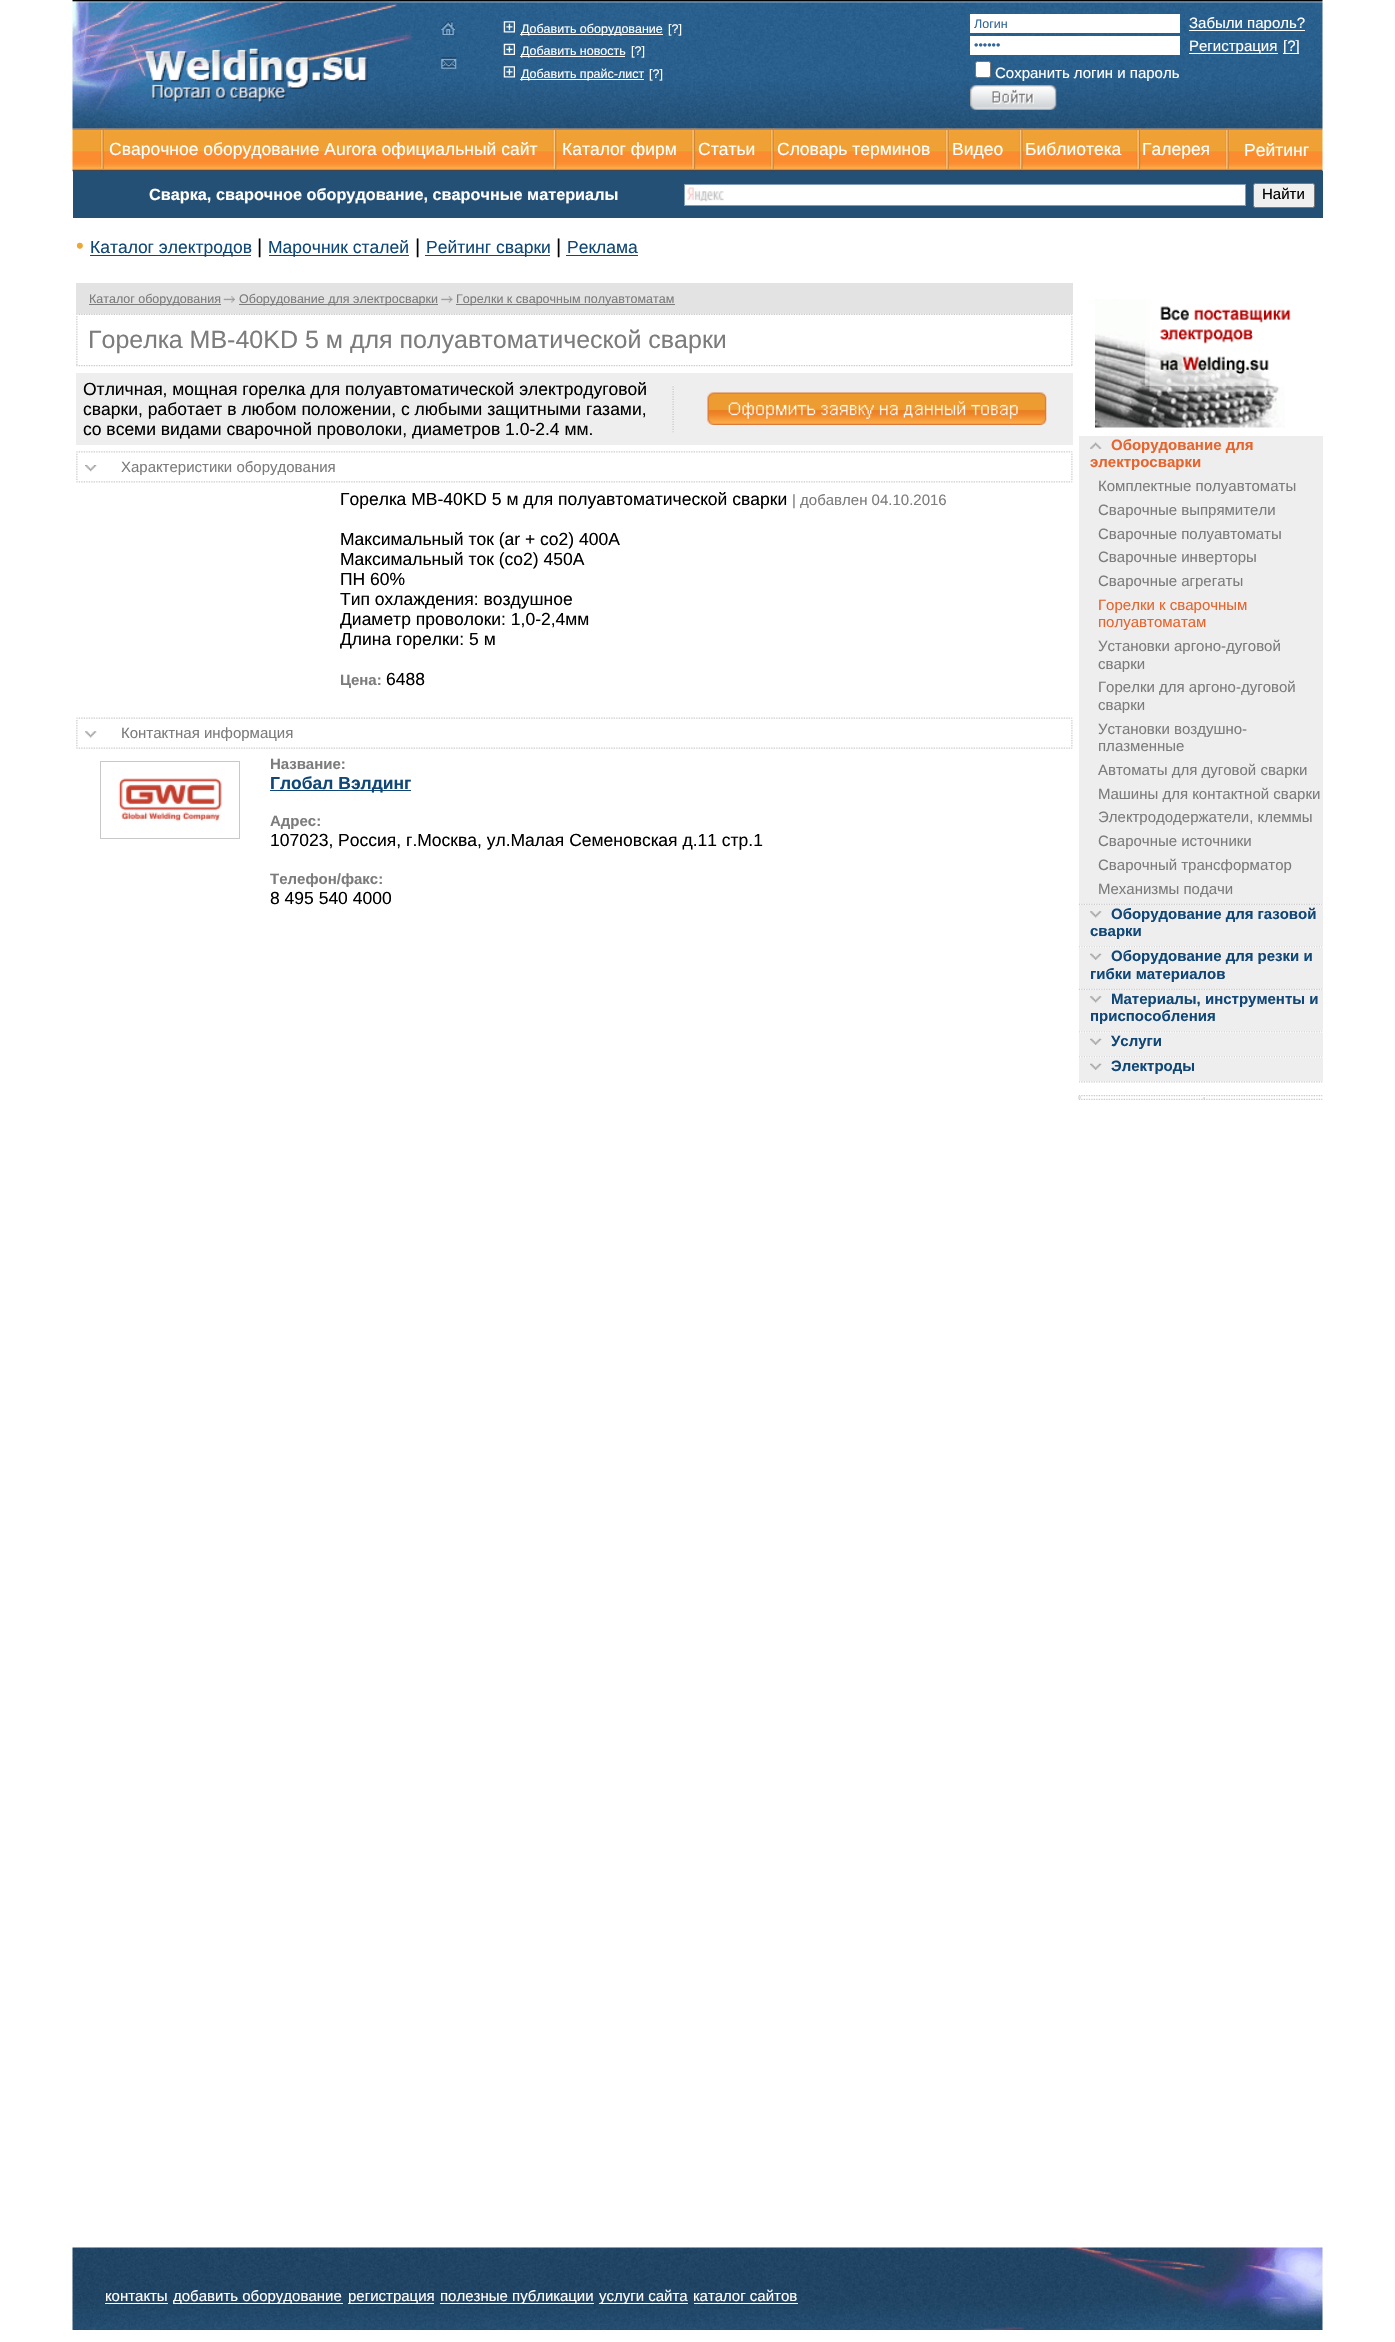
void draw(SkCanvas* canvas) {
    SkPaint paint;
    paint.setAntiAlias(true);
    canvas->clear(0xFFFFFFFF);
    canvas->drawImageRect(SkImages::DeferredFromEncodedData(SkData::MakeFromFileName("img1.png")), SkRect::MakeXYWH(72, 0, 1251, 129), SkSamplingOptions());
    canvas->drawImageRect(SkImages::DeferredFromEncodedData(SkData::MakeFromFileName("img2.png")), SkRect::MakeXYWH(441, 21, 14, 14), SkSamplingOptions());
    canvas->drawImageRect(SkImages::DeferredFromEncodedData(SkData::MakeFromFileName("img3.png")), SkRect::MakeXYWH(441, 57, 16, 12), SkSamplingOptions());
    canvas->drawImageRect(SkImages::DeferredFromEncodedData(SkData::MakeFromFileName("img4.png")), SkRect::MakeXYWH(503, 21, 12, 12), SkSamplingOptions());
    paint.setColor(0xFFFFFFFF);
    canvas->drawRect(SkRect::MakeXYWH(520, 34, 143, 1), paint);
    SkFont font1(fontMgr->matchFamilyStyle("Liberation Sans", SkFontStyle::Normal()), 12.5f);
    font1.setSubpixel(true);
    canvas->drawString("Добавить оборудование", 521, 33, font1, paint);
    canvas->drawString("[?]", 668, 33, font1, paint);
    canvas->drawImageRect(SkImages::DeferredFromEncodedData(SkData::MakeFromFileName("img5.png")), SkRect::MakeXYWH(503, 43, 12, 12), SkSamplingOptions());
    canvas->drawRect(SkRect::MakeXYWH(520, 56, 105, 1), paint);
    canvas->drawString("Добавить новость", 521, 55, font1, paint);
    canvas->drawString("[?]", 631, 55, font1, paint);
    canvas->drawImageRect(SkImages::DeferredFromEncodedData(SkData::MakeFromFileName("img6.png")), SkRect::MakeXYWH(503, 66, 12, 12), SkSamplingOptions());
    canvas->drawRect(SkRect::MakeXYWH(520, 79, 124, 1), paint);
    canvas->drawString("Добавить прайс-лист", 521, 78, font1, paint);
    canvas->drawString("[?]", 649, 78, font1, paint);
    canvas->drawRect(SkRect::MakeXYWH(970, 14, 210, 19), paint);
    paint.setColor(0xFF336699);
    canvas->drawString("Логин", 974, 28, font1, paint);
    paint.setColor(0xFFFFFFFF);
    canvas->drawRect(SkRect::MakeXYWH(1189, 30, 116, 1), paint);
    SkFont font2(fontMgr->matchFamilyStyle("Liberation Sans", SkFontStyle::Normal()), 15);
    font2.setSubpixel(true);
    canvas->drawString("Забыли пароль?", 1189, 28, font2, paint);
    canvas->drawRect(SkRect::MakeXYWH(970, 36, 210, 19), paint);
    paint.setColor(0xFF336699);
    canvas->drawString("••••••", 974, 49, font1, paint);
    paint.setColor(0xFFFFFFFF);
    canvas->drawRect(SkRect::MakeXYWH(1189, 53, 89, 1), paint);
    canvas->drawString("Регистрация", 1189, 51, font2, paint);
    canvas->drawRect(SkRect::MakeXYWH(1283, 53, 16, 1), paint);
    canvas->drawString("[?]", 1283, 51, font2, paint);
    canvas->drawRoundRect(SkRect::MakeXYWH(975.5f, 61.5f, 15, 16), 2, 2, paint);
    paint.setStyle(SkPaint::kStroke_Style);
    paint.setStrokeWidth(1);
    paint.setColor(0xFF767676);
    canvas->drawRoundRect(SkRect::MakeXYWH(975.5f, 61.5f, 15, 16), 2, 2, paint);
    paint.setStyle(SkPaint::kFill_Style);
    paint.setColor(0xFFFFFFFF);
    canvas->drawString("Сохранить логин и пароль", 995, 78, font2, paint);
    canvas->drawImageRect(SkImages::DeferredFromEncodedData(SkData::MakeFromFileName("img7.png")), SkRect::MakeXYWH(970, 85, 87, 25), SkSamplingOptions());
    canvas->drawImageRect(SkImages::DeferredFromEncodedData(SkData::MakeFromFileName("img8.png")), SkRect::MakeXYWH(72, 128, 1251, 44), SkSamplingOptions());
    paint.setColor(0xFF255075);
    canvas->drawRect(SkRect::MakeXYWH(73, 171, 1250, 47), paint);
    canvas->drawImageRect(SkImages::DeferredFromEncodedData(SkData::MakeFromFileName("img9.png")), SkRect::MakeXYWH(100, 128, 5, 44), SkSamplingOptions());
    SkFont font3(fontMgr->matchFamilyStyle("Liberation Sans", SkFontStyle::Normal()), 17.5f);
    font3.setSubpixel(true);
    paint.setColor(0xFFFFFFFF);
    canvas->drawString("Сварочное оборудование Aurora официальный сайт", 109, 155, font3, paint);
    canvas->drawImageRect(SkImages::DeferredFromEncodedData(SkData::MakeFromFileName("img10.png")), SkRect::MakeXYWH(552, 128, 6, 44), SkSamplingOptions());
    canvas->drawString("Каталог фирм", 562, 155, font3, paint);
    canvas->drawImageRect(SkImages::DeferredFromEncodedData(SkData::MakeFromFileName("img11.png")), SkRect::MakeXYWH(691, 128, 6, 44), SkSamplingOptions());
    canvas->drawString("Статьи", 698, 155, font3, paint);
    canvas->drawImageRect(SkImages::DeferredFromEncodedData(SkData::MakeFromFileName("img12.png")), SkRect::MakeXYWH(770, 128, 5, 44), SkSamplingOptions());
    canvas->drawString("Словарь терминов", 777, 155, font3, paint);
    canvas->drawImageRect(SkImages::DeferredFromEncodedData(SkData::MakeFromFileName("img13.png")), SkRect::MakeXYWH(945, 128, 5, 44), SkSamplingOptions());
    canvas->drawString("Видео", 952, 155, font3, paint);
    canvas->drawImageRect(SkImages::DeferredFromEncodedData(SkData::MakeFromFileName("img14.png")), SkRect::MakeXYWH(1018, 128, 6, 44), SkSamplingOptions());
    canvas->drawString("Библиотека", 1025, 155, font3, paint);
    canvas->drawImageRect(SkImages::DeferredFromEncodedData(SkData::MakeFromFileName("img15.png")), SkRect::MakeXYWH(1136, 128, 6, 44), SkSamplingOptions());
    canvas->drawString("Галерея", 1142, 155, font3, paint);
    canvas->drawImageRect(SkImages::DeferredFromEncodedData(SkData::MakeFromFileName("img16.png")), SkRect::MakeXYWH(1225, 128, 5, 44), SkSamplingOptions());
    canvas->drawString("Рейтинг", 1244, 156, font3, paint);
    SkFont font4(fontMgr->matchFamilyStyle("Liberation Sans", SkFontStyle::Bold()), 16.25f);
    font4.setSubpixel(true);
    canvas->drawString("Сварка, сварочное оборудование, сварочные материалы", 149, 200, font4, paint);
    canvas->drawRect(SkRect::MakeXYWH(685, 185, 560, 20), paint);
    canvas->drawImageRect(SkImages::DeferredFromEncodedData(SkData::MakeFromFileName("img17.png")), SkRect::MakeXYWH(687, 187, 37, 15), SkSamplingOptions());
    paint.setStyle(SkPaint::kStroke_Style);
    paint.setColor(0xFF7F9DB9);
    canvas->drawRect(SkRect::MakeXYWH(684.5f, 184.5f, 561, 21), paint);
    paint.setStyle(SkPaint::kFill_Style);
    paint.setColor(0xFFEFEFEF);
    canvas->drawRoundRect(SkRect::MakeXYWH(1253.5f, 183.5f, 61, 24), 2, 2, paint);
    paint.setStyle(SkPaint::kStroke_Style);
    paint.setColor(0xFF767676);
    canvas->drawRoundRect(SkRect::MakeXYWH(1253.5f, 183.5f, 61, 24), 2, 2, paint);
    paint.setStyle(SkPaint::kFill_Style);
    paint.setColor(0xFF000000);
    canvas->drawString("Найти", 1262, 199, font2, paint);
    SkFont font5(fontMgr->matchFamilyStyle("Liberation Sans", SkFontStyle::Normal()), 22);
    font5.setSubpixel(true);
    paint.setColor(0xFFEDA736);
    canvas->drawString("•", 76, 253, font5, paint);
    paint.setColor(0xFF104776);
    canvas->drawRect(SkRect::MakeXYWH(90, 255, 161, 1), paint);
    canvas->drawString("Каталог электродов", 90, 253, font3, paint);
    SkFont font6(fontMgr->matchFamilyStyle("Liberation Sans", SkFontStyle::Normal()), 20);
    font6.setSubpixel(true);
    paint.setColor(0xFF000000);
    canvas->drawString("|", 257, 253, font6, paint);
    paint.setColor(0xFF104776);
    canvas->drawRect(SkRect::MakeXYWH(269, 255, 140, 1), paint);
    canvas->drawString("Марочник сталей", 268, 253, font3, paint);
    paint.setColor(0xFF000000);
    canvas->drawString("|", 415, 253, font6, paint);
    paint.setColor(0xFF104776);
    canvas->drawRect(SkRect::MakeXYWH(425, 255, 125, 1), paint);
    canvas->drawString("Рейтинг сварки", 426, 253, font3, paint);
    paint.setColor(0xFF000000);
    canvas->drawString("|", 556, 253, font6, paint);
    paint.setColor(0xFF104776);
    canvas->drawString("Реклама", 567, 253, font3, paint);
    canvas->drawRect(SkRect::MakeXYWH(566, 255, 72, 1), paint);
    paint.setColor(0xFFE3E3E3);
    canvas->drawRect(SkRect::MakeXYWH(76, 283, 997, 31), paint);
    paint.setColor(0xFF7C7C7C);
    canvas->drawRect(SkRect::MakeXYWH(89, 304, 132, 1), paint);
    canvas->drawString("Каталог оборудования", 89, 303, font1, paint);
    canvas->drawImageRect(SkImages::DeferredFromEncodedData(SkData::MakeFromFileName("img18.png")), SkRect::MakeXYWH(223, 296, 12, 7), SkSamplingOptions());
    canvas->drawRect(SkRect::MakeXYWH(239, 304, 199, 1), paint);
    canvas->drawString("Оборудование для электросварки", 239, 303, font1, paint);
    canvas->drawImageRect(SkImages::DeferredFromEncodedData(SkData::MakeFromFileName("img19.png")), SkRect::MakeXYWH(441, 296, 12, 7), SkSamplingOptions());
    canvas->drawRect(SkRect::MakeXYWH(456, 304, 219, 1), paint);
    canvas->drawString("Горелки к сварочным полуавтоматам", 456, 303, font1, paint);
    canvas->drawImageRect(SkImages::DeferredFromEncodedData(SkData::MakeFromFileName("img20.png")), SkRect::MakeXYWH(76, 313, 997, 2), SkSamplingOptions());
    canvas->drawImageRect(SkImages::DeferredFromEncodedData(SkData::MakeFromFileName("img21.png")), SkRect::MakeXYWH(76, 316, 2, 49), SkSamplingOptions());
    SkFont font7(fontMgr->matchFamilyStyle("Liberation Sans", SkFontStyle::Normal()), 25);
    font7.setSubpixel(true);
    canvas->drawString("Горелка МВ-40KD 5 м для полуавтоматической сварки", 88, 348, font7, paint);
    canvas->drawImageRect(SkImages::DeferredFromEncodedData(SkData::MakeFromFileName("img22.png")), SkRect::MakeXYWH(1071, 316, 2, 49), SkSamplingOptions());
    canvas->drawImageRect(SkImages::DeferredFromEncodedData(SkData::MakeFromFileName("img23.png")), SkRect::MakeXYWH(76, 365, 997, 2), SkSamplingOptions());
    paint.setColor(0xFFEEEEEE);
    canvas->drawRect(SkRect::MakeXYWH(76, 373, 997, 72), paint);
    paint.setColor(0xFF000000);
    canvas->drawString("Отличная, мощная горелка для полуавтоматической электродуговой", 83, 395, font3, paint);
    canvas->drawString("сварки, работает в любом положении, с любыми защитными газами,", 83, 415, font3, paint);
    canvas->drawString("со всеми видами сварочной проволоки, диаметров 1.0-2.4 мм.", 83, 435, font3, paint);
    canvas->drawImageRect(SkImages::DeferredFromEncodedData(SkData::MakeFromFileName("img24.png")), SkRect::MakeXYWH(672, 385, 2, 48), SkSamplingOptions());
    canvas->drawImageRect(SkImages::DeferredFromEncodedData(SkData::MakeFromFileName("img25.png")), SkRect::MakeXYWH(707, 392, 340, 33), SkSamplingOptions());
    canvas->drawImageRect(SkImages::DeferredFromEncodedData(SkData::MakeFromFileName("img26.png")), SkRect::MakeXYWH(76, 451, 997, 2), SkSamplingOptions());
    canvas->drawImageRect(SkImages::DeferredFromEncodedData(SkData::MakeFromFileName("img27.png")), SkRect::MakeXYWH(76, 452, 2, 30), SkSamplingOptions());
    canvas->drawImageRect(SkImages::DeferredFromEncodedData(SkData::MakeFromFileName("img28.png")), SkRect::MakeXYWH(85, 465, 12, 7), SkSamplingOptions());
    paint.setColor(0xFF7C7C7C);
    canvas->drawString("Характеристики оборудования", 121, 472, font2, paint);
    canvas->drawImageRect(SkImages::DeferredFromEncodedData(SkData::MakeFromFileName("img29.png")), SkRect::MakeXYWH(1071, 452, 2, 30), SkSamplingOptions());
    canvas->drawImageRect(SkImages::DeferredFromEncodedData(SkData::MakeFromFileName("img30.png")), SkRect::MakeXYWH(76, 481, 997, 2), SkSamplingOptions());
    paint.setColor(0xFF000000);
    canvas->drawString("Горелка МВ-40KD 5 м для полуавтоматической сварки", 340, 505, font3, paint);
    paint.setColor(0xFF7C7C7C);
    canvas->drawString("| добавлен 04.10.2016", 792, 505, font2, paint);
    paint.setColor(0xFF000000);
    canvas->drawString("Максимальный ток (ar + co2) 400А", 340, 545, font3, paint);
    canvas->drawString("Максимальный ток (со2) 450А", 340, 565, font3, paint);
    canvas->drawString("ПН 60%", 340, 585, font3, paint);
    canvas->drawString("Тип охлаждения: воздушное", 340, 605, font3, paint);
    canvas->drawString("Диаметр проволоки: 1,0-2,4мм", 340, 625, font3, paint);
    canvas->drawString("Длина горелки: 5 м", 340, 645, font3, paint);
    SkFont font8(fontMgr->matchFamilyStyle("Liberation Sans", SkFontStyle::Bold()), 15);
    font8.setSubpixel(true);
    paint.setColor(0xFF7C7C7C);
    canvas->drawString("Цена:", 340, 685, font8, paint);
    paint.setColor(0xFF000000);
    canvas->drawString("6488", 386, 685, font3, paint);
    canvas->drawImageRect(SkImages::DeferredFromEncodedData(SkData::MakeFromFileName("img31.png")), SkRect::MakeXYWH(76, 717, 997, 2), SkSamplingOptions());
    canvas->drawImageRect(SkImages::DeferredFromEncodedData(SkData::MakeFromFileName("img32.png")), SkRect::MakeXYWH(76, 720, 2, 28), SkSamplingOptions());
    canvas->drawImageRect(SkImages::DeferredFromEncodedData(SkData::MakeFromFileName("img33.png")), SkRect::MakeXYWH(85, 731, 12, 7), SkSamplingOptions());
    paint.setColor(0xFF7C7C7C);
    canvas->drawString("Контактная информация", 121, 738, font2, paint);
    canvas->drawImageRect(SkImages::DeferredFromEncodedData(SkData::MakeFromFileName("img34.png")), SkRect::MakeXYWH(1071, 720, 2, 28), SkSamplingOptions());
    canvas->drawImageRect(SkImages::DeferredFromEncodedData(SkData::MakeFromFileName("img35.png")), SkRect::MakeXYWH(76, 747, 997, 2), SkSamplingOptions());
    paint.setStyle(SkPaint::kStroke_Style);
    paint.setColor(0xFFC8C8C8);
    canvas->drawRect(SkRect::MakeXYWH(100.5f, 761.5f, 139, 77), paint);
    canvas->drawImageRect(SkImages::DeferredFromEncodedData(SkData::MakeFromFileName("img36.png")), SkRect::MakeXYWH(118, 778, 104, 44), SkSamplingOptions());
    paint.setStyle(SkPaint::kFill_Style);
    paint.setColor(0xFF7C7C7C);
    canvas->drawString("Название:", 270, 769, font8, paint);
    paint.setColor(0xFF104776);
    canvas->drawRect(SkRect::MakeXYWH(270, 790, 141, 1), paint);
    SkFont font9(fontMgr->matchFamilyStyle("Liberation Sans", SkFontStyle::Bold()), 17.5f);
    font9.setSubpixel(true);
    canvas->drawString("Глобал Вэлдинг", 270, 789, font9, paint);
    paint.setColor(0xFF7C7C7C);
    canvas->drawString("Адрес:", 270, 826, font8, paint);
    paint.setColor(0xFF000000);
    canvas->drawString("107023, Россия, г.Москва, ул.Малая Семеновская д.11 стр.1", 270, 846, font3, paint);
    paint.setColor(0xFF7C7C7C);
    canvas->drawString("Телефон/факс:", 270, 884, font8, paint);
    paint.setColor(0xFF000000);
    canvas->drawString("8 495 540 4000", 270, 904, font3, paint);
    canvas->drawImageRect(SkImages::DeferredFromEncodedData(SkData::MakeFromFileName("img37.png")), SkRect::MakeXYWH(1095, 299, 196, 129), SkSamplingOptions());
    paint.setColor(0xFFEEEEEE);
    canvas->drawRect(SkRect::MakeXYWH(1079, 436, 244, 468), paint);
    canvas->drawImageRect(SkImages::DeferredFromEncodedData(SkData::MakeFromFileName("img38.png")), SkRect::MakeXYWH(1090, 442, 12, 7), SkSamplingOptions());
    paint.setColor(0xFFE7642C);
    canvas->drawString("Оборудование для", 1111, 450, font8, paint);
    canvas->drawString("электросварки", 1090, 467, font8, paint);
    paint.setColor(0xFF7C7C7C);
    canvas->drawString("Комплектные полуавтоматы", 1098, 491, font2, paint);
    canvas->drawString("Сварочные выпрямители", 1098, 515, font2, paint);
    canvas->drawString("Сварочные полуавтоматы", 1098, 539, font2, paint);
    canvas->drawString("Сварочные инверторы", 1098, 562, font2, paint);
    canvas->drawString("Сварочные агрегаты", 1098, 586, font2, paint);
    paint.setColor(0xFFE7642C);
    canvas->drawString("Горелки к сварочным", 1098, 610, font2, paint);
    canvas->drawString("полуавтоматам", 1098, 627, font2, paint);
    paint.setColor(0xFF7C7C7C);
    canvas->drawString("Установки аргоно-дуговой", 1098, 651, font2, paint);
    canvas->drawString("сварки", 1098, 669, font2, paint);
    canvas->drawString("Горелки для аргоно-дуговой", 1098, 692, font2, paint);
    canvas->drawString("сварки", 1098, 710, font2, paint);
    canvas->drawString("Установки воздушно-", 1098, 734, font2, paint);
    canvas->drawString("плазменные", 1098, 751, font2, paint);
    canvas->drawString("Автоматы для дуговой сварки", 1098, 775, font2, paint);
    canvas->drawString("Машины для контактной сварки", 1098, 799, font2, paint);
    canvas->drawString("Электрододержатели, клеммы", 1098, 822, font2, paint);
    canvas->drawString("Сварочные источники", 1098, 846, font2, paint);
    canvas->drawString("Сварочный трансформатор", 1098, 870, font2, paint);
    canvas->drawString("Механизмы подачи", 1098, 894, font2, paint);
    canvas->drawImageRect(SkImages::DeferredFromEncodedData(SkData::MakeFromFileName("img39.png")), SkRect::MakeXYWH(1078, 903, 245, 2), SkSamplingOptions());
    paint.setColor(0xFFEEEEEE);
    canvas->drawRect(SkRect::MakeXYWH(1079, 905, 244, 41), paint);
    canvas->drawImageRect(SkImages::DeferredFromEncodedData(SkData::MakeFromFileName("img40.png")), SkRect::MakeXYWH(1090, 911, 12, 7), SkSamplingOptions());
    paint.setColor(0xFF104776);
    canvas->drawString("Оборудование для газовой", 1111, 919, font8, paint);
    canvas->drawString("сварки", 1090, 936, font8, paint);
    canvas->drawImageRect(SkImages::DeferredFromEncodedData(SkData::MakeFromFileName("img41.png")), SkRect::MakeXYWH(1079, 946, 244, 2), SkSamplingOptions());
    paint.setColor(0xFFEEEEEE);
    canvas->drawRect(SkRect::MakeXYWH(1079, 948, 244, 41), paint);
    canvas->drawImageRect(SkImages::DeferredFromEncodedData(SkData::MakeFromFileName("img42.png")), SkRect::MakeXYWH(1090, 953, 12, 7), SkSamplingOptions());
    paint.setColor(0xFF104776);
    canvas->drawString("Оборудование для резки и", 1111, 961, font8, paint);
    canvas->drawString("гибки материалов", 1090, 979, font8, paint);
    canvas->drawImageRect(SkImages::DeferredFromEncodedData(SkData::MakeFromFileName("img39.png")), SkRect::MakeXYWH(1078, 988, 245, 2), SkSamplingOptions());
    paint.setColor(0xFFEEEEEE);
    canvas->drawRect(SkRect::MakeXYWH(1079, 990, 244, 41), paint);
    canvas->drawImageRect(SkImages::DeferredFromEncodedData(SkData::MakeFromFileName("img40.png")), SkRect::MakeXYWH(1090, 996, 12, 7), SkSamplingOptions());
    paint.setColor(0xFF104776);
    canvas->drawString("Материалы, инструменты и", 1111, 1004, font8, paint);
    canvas->drawString("приспособления", 1090, 1021, font8, paint);
    canvas->drawImageRect(SkImages::DeferredFromEncodedData(SkData::MakeFromFileName("img41.png")), SkRect::MakeXYWH(1079, 1031, 244, 2), SkSamplingOptions());
    paint.setColor(0xFFEEEEEE);
    canvas->drawRect(SkRect::MakeXYWH(1079, 1033, 244, 23), paint);
    canvas->drawImageRect(SkImages::DeferredFromEncodedData(SkData::MakeFromFileName("img42.png")), SkRect::MakeXYWH(1090, 1038, 12, 7), SkSamplingOptions());
    paint.setColor(0xFF104776);
    canvas->drawString("Услуги", 1111, 1046, font8, paint);
    canvas->drawImageRect(SkImages::DeferredFromEncodedData(SkData::MakeFromFileName("img41.png")), SkRect::MakeXYWH(1079, 1056, 244, 2), SkSamplingOptions());
    paint.setColor(0xFFEEEEEE);
    canvas->drawRect(SkRect::MakeXYWH(1079, 1058, 244, 23), paint);
    canvas->drawImageRect(SkImages::DeferredFromEncodedData(SkData::MakeFromFileName("img42.png")), SkRect::MakeXYWH(1090, 1063, 12, 7), SkSamplingOptions());
    paint.setColor(0xFF104776);
    canvas->drawString("Электроды", 1111, 1071, font8, paint);
    canvas->drawImageRect(SkImages::DeferredFromEncodedData(SkData::MakeFromFileName("img41.png")), SkRect::MakeXYWH(1079, 1081, 244, 2), SkSamplingOptions());
    canvas->drawImageRect(SkImages::DeferredFromEncodedData(SkData::MakeFromFileName("img43.png")), SkRect::MakeXYWH(1078, 1095, 245, 2), SkSamplingOptions());
    paint.setColor(0xFFE4E3E3);
    canvas->drawRect(SkRect::MakeXYWH(1078, 1096, 3, 3), paint);
    canvas->drawImageRect(SkImages::DeferredFromEncodedData(SkData::MakeFromFileName("img44.png")), SkRect::MakeXYWH(1201, 1096, 4, 3), SkSamplingOptions());
    canvas->drawImageRect(SkImages::DeferredFromEncodedData(SkData::MakeFromFileName("img45.png")), SkRect::MakeXYWH(1078, 1098, 245, 2), SkSamplingOptions());
    canvas->drawImageRect(SkImages::DeferredFromEncodedData(SkData::MakeFromFileName("img46.png")), SkRect::MakeXYWH(72, 2247, 1251, 83), SkSamplingOptions());
    paint.setColor(0xFFFFFFFF);
    canvas->drawString("контакты", 105, 2301, font2, paint);
    canvas->drawRect(SkRect::MakeXYWH(105, 2303, 63, 1), paint);
    canvas->drawRect(SkRect::MakeXYWH(174, 2303, 169, 1), paint);
    canvas->drawString("добавить оборудование", 173, 2301, font2, paint);
    canvas->drawRect(SkRect::MakeXYWH(348, 2303, 86, 1), paint);
    canvas->drawString("регистрация", 348, 2301, font2, paint);
    canvas->drawRect(SkRect::MakeXYWH(440, 2303, 154, 1), paint);
    canvas->drawString("полезные публикации", 440, 2301, font2, paint);
    canvas->drawRect(SkRect::MakeXYWH(599, 2303, 89, 1), paint);
    canvas->drawString("услуги сайта", 599, 2301, font2, paint);
    canvas->drawString("каталог сайтов", 693, 2301, font2, paint);
    canvas->drawRect(SkRect::MakeXYWH(694, 2303, 104, 1), paint);
}
